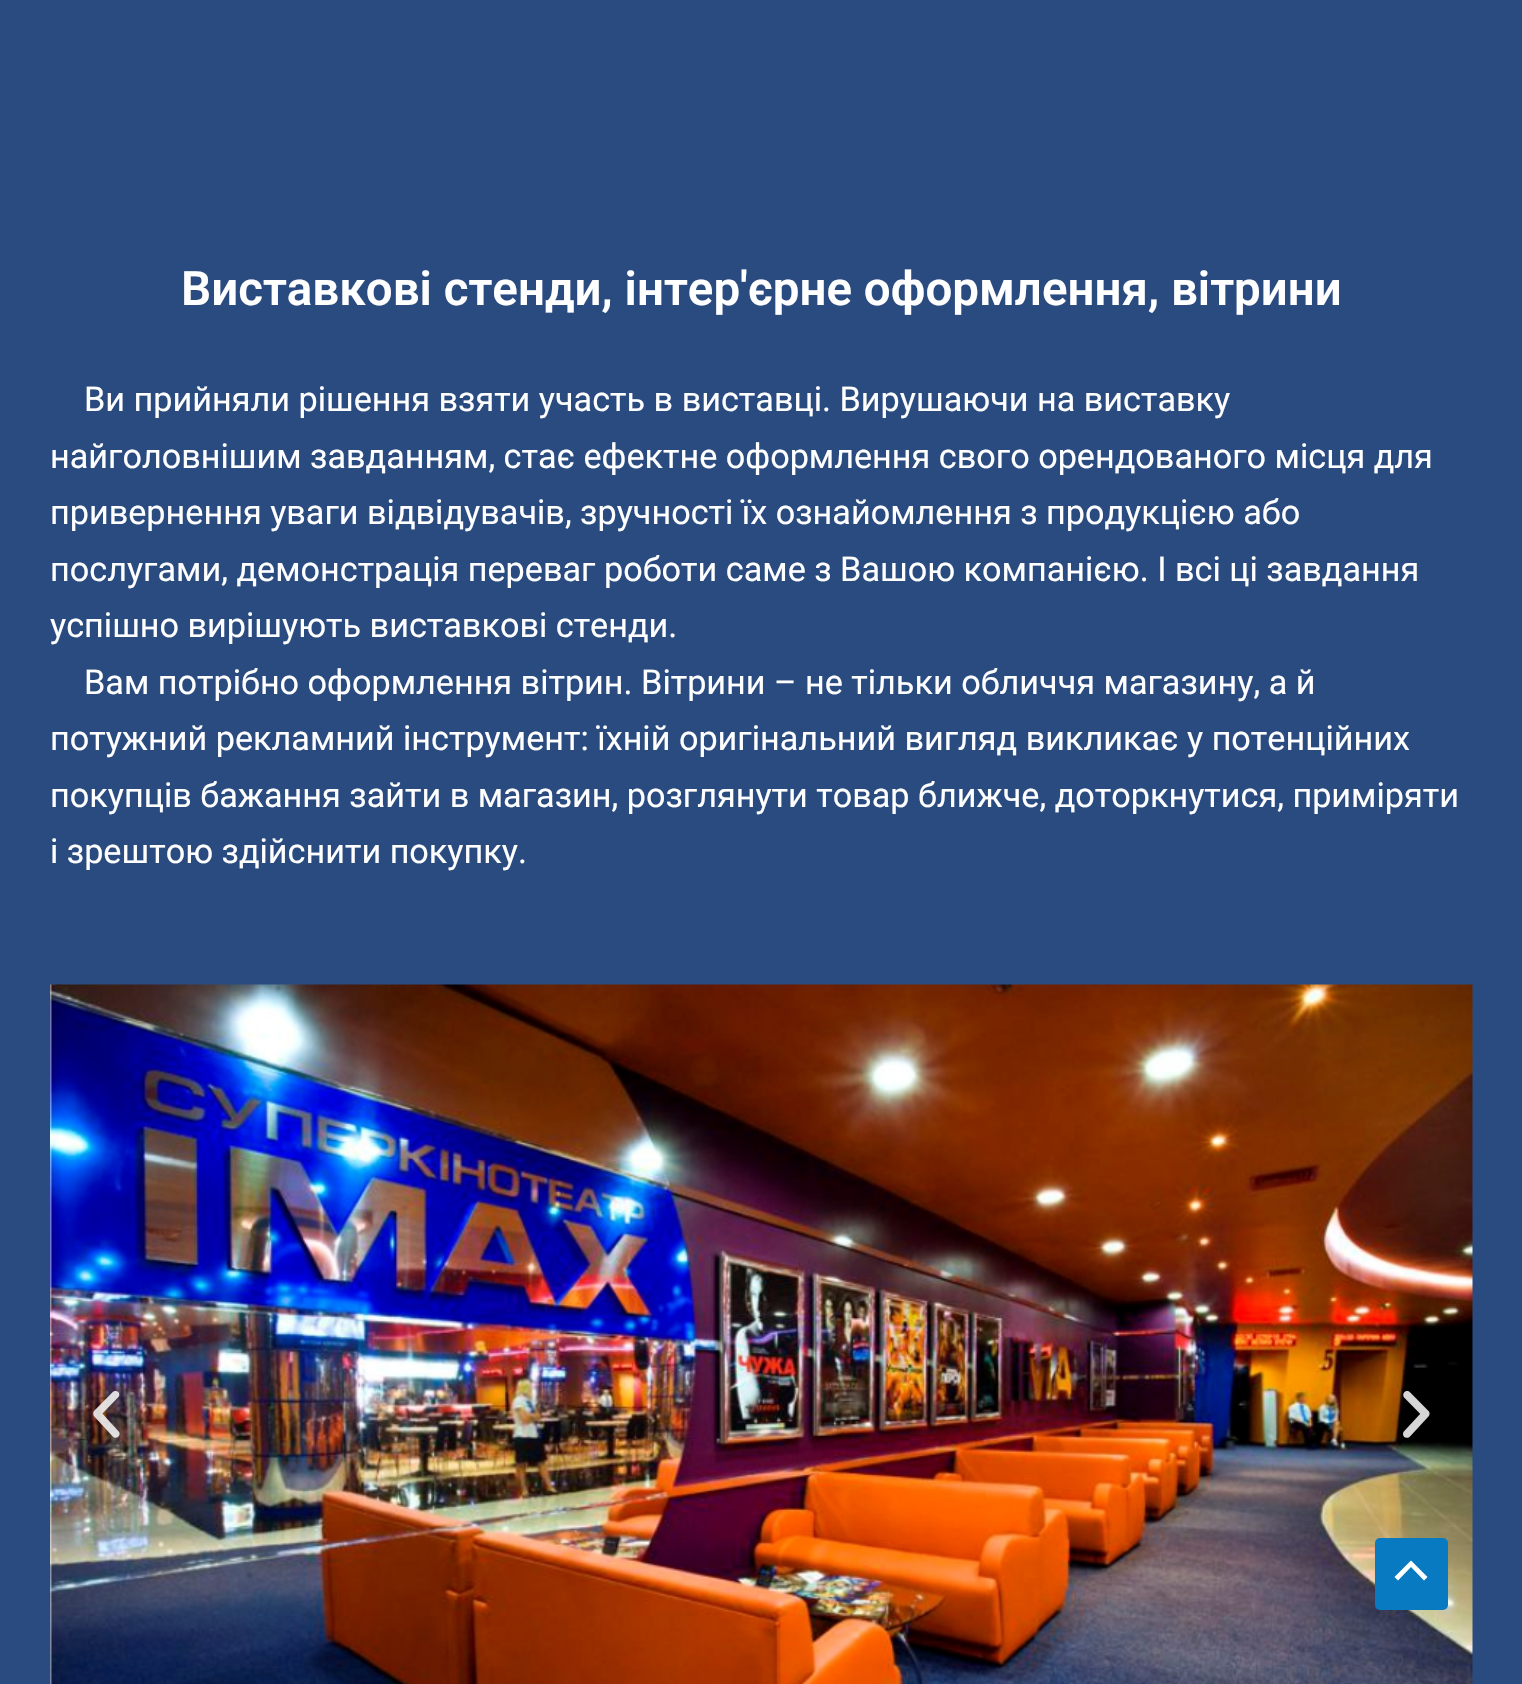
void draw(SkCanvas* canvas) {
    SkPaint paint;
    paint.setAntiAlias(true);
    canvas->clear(0xFF2A4B80);
    SkFont font1(fontMgr->matchFamilyStyle("Roboto", SkFontStyle(600, SkFontStyle::kNormal_Width, SkFontStyle::kUpright_Slant)), 47.5f);
    font1.setSubpixel(true);
    paint.setColor(0xFFFFFFFF);
    canvas->drawString("Виставкові стенди, інтер'єрне оформлення, вітрини", 181, 305, font1, paint);
    SkFont font2(fontMgr->matchFamilyStyle("Roboto", SkFontStyle::Normal()), 34.2f);
    font2.setSubpixel(true);
    canvas->drawString("Ви прийняли рішення взяти участь в виставці. Вирушаючи на виставку", 84, 411, font2, paint);
    canvas->drawString("найголовнішим завданням, стає ефектне оформлення свого орендованого місця для", 50, 468, font2, paint);
    canvas->drawString("привернення уваги відвідувачів, зручності їх ознайомлення з продукцією або", 50, 524, font2, paint);
    canvas->drawString("послугами, демонстрація переваг роботи саме з Вашою компанією. І всі ці завдання", 50, 581, font2, paint);
    canvas->drawString("успішно вирішують виставкові стенди.", 50, 637, font2, paint);
    canvas->drawString("Вам потрібно оформлення вітрин. Вітрини – не тільки обличчя магазину, а й", 84, 694, font2, paint);
    canvas->drawString("потужний рекламний інструмент: їхній оригінальний вигляд викликає у потенційних", 50, 750, font2, paint);
    canvas->drawString("покупців бажання зайти в магазин, розглянути товар ближче, доторкнутися, приміряти", 50, 807, font2, paint);
    canvas->drawString("і зрештою здійснити покупку.", 50, 863, font2, paint);
    canvas->drawImageRect(SkImages::DeferredFromEncodedData(SkData::MakeFromFileName("img1.png")), SkRect::MakeXYWH(50, 984, 1423, 700), SkSamplingOptions());
    canvas->drawImageRect(SkImages::DeferredFromEncodedData(SkData::MakeFromFileName("img2.png")), SkRect::MakeXYWH(93, 1390, 27, 48), SkSamplingOptions());
    canvas->drawImageRect(SkImages::DeferredFromEncodedData(SkData::MakeFromFileName("img3.png")), SkRect::MakeXYWH(1403, 1390, 27, 48), SkSamplingOptions());
    paint.setColor(0xFF087AC2);
    canvas->drawRoundRect(SkRect::MakeXYWH(1375, 1538, 73, 72), 5, 5, paint);
    paint.setColor(0xFFFFFFFF);
    canvas->drawPath(SkPathBuilder().moveTo(1427.5f, 1577).lineTo(1411, 1560.5f).lineTo(1394.5f, 1577).lineTo(1398, 1580.5f).lineTo(1411, 1567).lineTo(1424, 1580.5f).close().detach(), paint);
}
